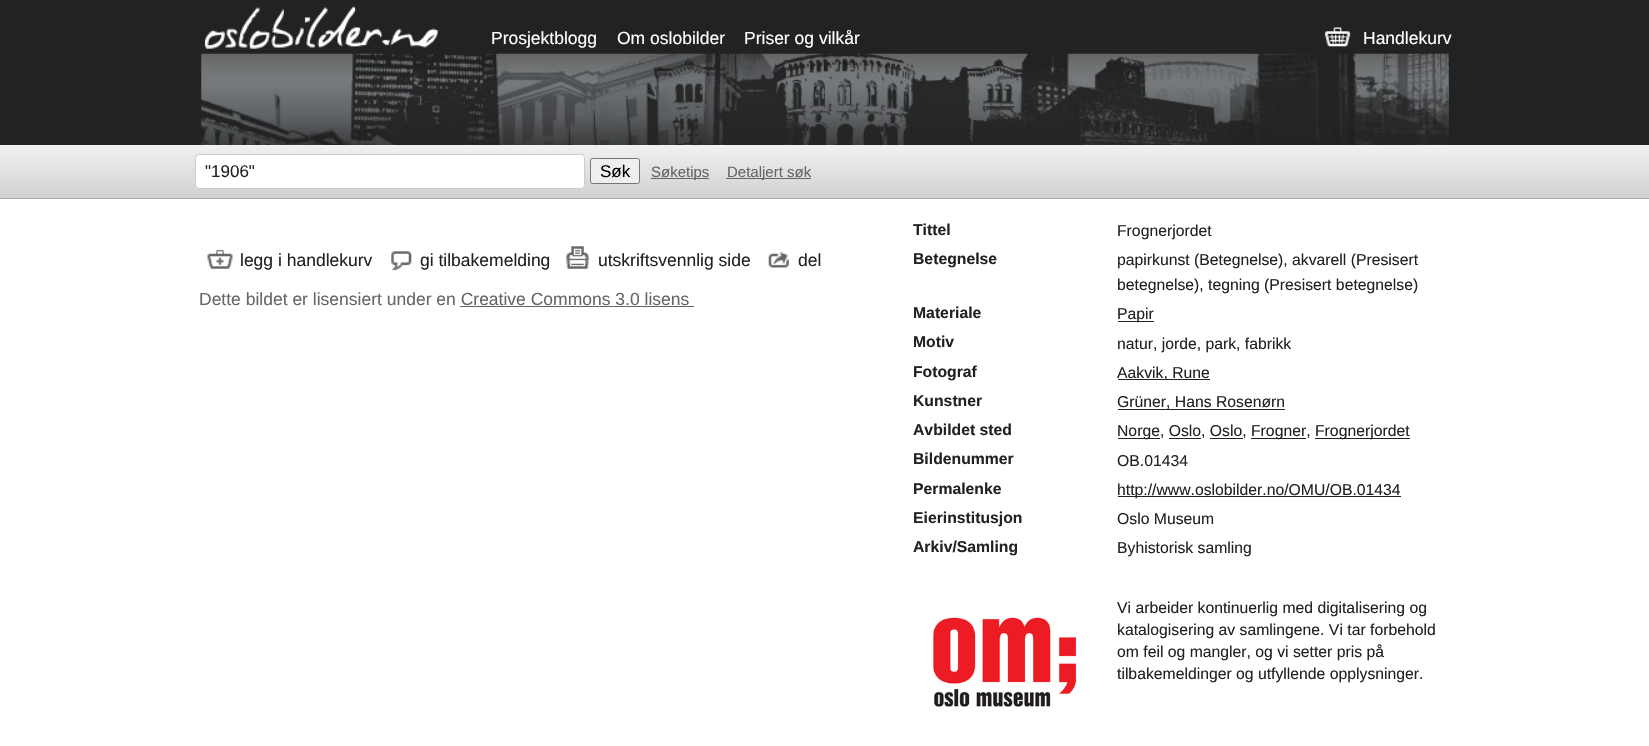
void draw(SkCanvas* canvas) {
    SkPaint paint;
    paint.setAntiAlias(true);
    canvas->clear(0xFFFFFFFF);
    paint.setColor(0xFF222222);
    canvas->drawRect(SkRect::MakeXYWH(0, 0, 1649, 145), paint);
    canvas->drawImageRect(SkImages::DeferredFromEncodedData(SkData::MakeFromFileName("img1.png")), SkRect::MakeXYWH(201, 53, 1248, 92), SkSamplingOptions());
    canvas->drawImageRect(SkImages::DeferredFromEncodedData(SkData::MakeFromFileName("img2.png")), SkRect::MakeXYWH(204, 6, 235, 43), SkSamplingOptions());
    SkFont font1(fontMgr->matchFamilyStyle("Liberation Sans", SkFontStyle::Normal()), 17.5f);
    font1.setSubpixel(true);
    paint.setColor(0xFFFFFFFF);
    canvas->drawString("Prosjektblogg", 491, 44, font1, paint);
    canvas->drawString("Om oslobilder", 617, 44, font1, paint);
    canvas->drawString("Priser og vilkår", 744, 44, font1, paint);
    canvas->drawImageRect(SkImages::DeferredFromEncodedData(SkData::MakeFromFileName("img3.png")), SkRect::MakeXYWH(1324, 27, 27, 20), SkSamplingOptions());
    canvas->drawString("Handlekurv", 1363, 44, font1, paint);
    {
        const SkColor colors[] = {0xFFF1F1F1, 0xFFD1D1D1};
        const float stops[] = {0, 1};
        const SkPoint ends[] = {{825, 145}, {825, 198}};
        paint.setShader(SkGradientShader::MakeLinear(ends, colors, stops, 2, SkTileMode::kClamp));
        paint.setAlpha(255);
    }
    canvas->drawRect(SkRect::MakeXYWH(0, 145, 1649, 53), paint);
    paint.setShader(nullptr);
    paint.setColor(0xFFAAAAAA);
    canvas->drawRect(SkRect::MakeXYWH(0, 198, 1649, 1), paint);
    paint.setColor(0xFFFFFFFF);
    canvas->drawRoundRect(SkRect::MakeXYWH(195.5f, 154.5f, 389, 34), 3.5f, 3.5f, paint);
    paint.setStyle(SkPaint::kStroke_Style);
    paint.setStrokeWidth(1);
    paint.setColor(0xFFCCCCCC);
    canvas->drawRoundRect(SkRect::MakeXYWH(195.5f, 154.5f, 389, 34), 3.5f, 3.5f, paint);
    SkFont font2(fontMgr->matchFamilyStyle("Liberation Sans", SkFontStyle::Normal()), 17);
    font2.setSubpixel(true);
    paint.setStyle(SkPaint::kFill_Style);
    paint.setColor(0xFF222222);
    canvas->drawString("\"1906\"", 205, 177, font2, paint);
    paint.setColor(0xFFEFEFEF);
    canvas->drawRoundRect(SkRect::MakeXYWH(590.5f, 158.5f, 49, 25), 2, 2, paint);
    paint.setStyle(SkPaint::kStroke_Style);
    paint.setColor(0xFF767676);
    canvas->drawRoundRect(SkRect::MakeXYWH(590.5f, 158.5f, 49, 25), 2, 2, paint);
    paint.setStyle(SkPaint::kFill_Style);
    paint.setColor(0xFF000000);
    canvas->drawString("Søk", 600, 177, font2, paint);
    paint.setColor(0xFF666666);
    canvas->drawRect(SkRect::MakeXYWH(651, 178, 58, 1), paint);
    SkFont font3(fontMgr->matchFamilyStyle("Liberation Sans", SkFontStyle::Normal()), 15);
    font3.setSubpixel(true);
    canvas->drawString("Søketips", 651, 177, font3, paint);
    canvas->drawRect(SkRect::MakeXYWH(726, 178, 85, 1), paint);
    canvas->drawString("Detaljert søk", 727, 177, font3, paint);
    canvas->drawImageRect(SkImages::DeferredFromEncodedData(SkData::MakeFromFileName("img4.png")), SkRect::MakeXYWH(207, 249, 26, 20), SkSamplingOptions());
    paint.setColor(0xFF222222);
    canvas->drawString("legg i handlekurv", 240, 266, font1, paint);
    canvas->drawImageRect(SkImages::DeferredFromEncodedData(SkData::MakeFromFileName("img5.png")), SkRect::MakeXYWH(391, 251, 21, 20), SkSamplingOptions());
    canvas->drawString("gi tilbakemelding", 420, 266, font1, paint);
    canvas->drawImageRect(SkImages::DeferredFromEncodedData(SkData::MakeFromFileName("img6.png")), SkRect::MakeXYWH(566, 246, 23, 23), SkSamplingOptions());
    canvas->drawString("utskriftsvennlig side", 598, 266, font1, paint);
    canvas->drawImageRect(SkImages::DeferredFromEncodedData(SkData::MakeFromFileName("img7.png")), SkRect::MakeXYWH(768, 252, 21, 16), SkSamplingOptions());
    canvas->drawString("del", 798, 266, font1, paint);
    paint.setColor(0xFF666666);
    canvas->drawString("Dette bildet er lisensiert under en Creative Commons 3.0 lisens", 199, 305, font1, paint);
    canvas->drawRect(SkRect::MakeXYWH(460, 306, 234, 1), paint);
    SkFont font4(fontMgr->matchFamilyStyle("Liberation Sans", SkFontStyle::Bold()), 15.75f);
    font4.setSubpixel(true);
    paint.setColor(0xFF222222);
    canvas->drawString("Tittel", 913, 235, font4, paint);
    SkFont font5(fontMgr->matchFamilyStyle("Liberation Sans", SkFontStyle::Normal()), 15.75f);
    font5.setSubpixel(true);
    canvas->drawString("Frognerjordet", 1117, 236, font5, paint);
    canvas->drawString("Betegnelse", 913, 264, font4, paint);
    canvas->drawString("papirkunst (Betegnelse), akvarell (Presisert", 1117, 265, font5, paint);
    canvas->drawString("betegnelse), tegning (Presisert betegnelse)", 1117, 290, font5, paint);
    canvas->drawString("Materiale", 913, 318, font4, paint);
    canvas->drawRect(SkRect::MakeXYWH(1118, 321, 36, 1), paint);
    canvas->drawString("Papir", 1117, 319, font5, paint);
    canvas->drawString("Motiv", 913, 347, font4, paint);
    canvas->drawString("natur, jorde, park, fabrikk", 1117, 349, font5, paint);
    canvas->drawString("Fotograf", 913, 377, font4, paint);
    canvas->drawRect(SkRect::MakeXYWH(1118, 379, 92, 1), paint);
    canvas->drawString("Aakvik, Rune", 1117, 378, font5, paint);
    canvas->drawString("Kunstner", 913, 406, font4, paint);
    canvas->drawString("Grüner, Hans Rosenørn", 1117, 407, font5, paint);
    canvas->drawRect(SkRect::MakeXYWH(1118, 409, 167, 1), paint);
    canvas->drawString("Avbildet sted", 913, 435, font4, paint);
    canvas->drawRect(SkRect::MakeXYWH(1118, 438, 42, 1), paint);
    canvas->drawString("Norge, Oslo, Oslo,", 1117, 436, font5, paint);
    canvas->drawRect(SkRect::MakeXYWH(1251, 438, 55, 1), paint);
    canvas->drawString("Frogner,", 1251, 436, font5, paint);
    canvas->drawRect(SkRect::MakeXYWH(1315, 438, 95, 1), paint);
    canvas->drawString("Frognerjordet", 1315, 436, font5, paint);
    canvas->drawRect(SkRect::MakeXYWH(1169, 438, 32, 1), paint);
    canvas->drawRect(SkRect::MakeXYWH(1210, 438, 33, 1), paint);
    canvas->drawString("Bildenummer", 913, 464, font4, paint);
    canvas->drawString("OB.01434", 1117, 466, font5, paint);
    canvas->drawString("Permalenke", 913, 494, font4, paint);
    canvas->drawRect(SkRect::MakeXYWH(1118, 496, 283, 1), paint);
    canvas->drawString("http://www.oslobilder.no/OMU/OB.01434", 1117, 495, font5, paint);
    canvas->drawString("Eierinstitusjon", 913, 523, font4, paint);
    canvas->drawString("Oslo Museum", 1117, 524, font5, paint);
    canvas->drawString("Arkiv/Samling", 913, 552, font4, paint);
    canvas->drawString("Byhistorisk samling", 1117, 553, font5, paint);
    canvas->drawImageRect(SkImages::DeferredFromEncodedData(SkData::MakeFromFileName("img8.png")), SkRect::MakeXYWH(933, 617, 144, 90), SkSamplingOptions());
    canvas->drawString("Vi arbeider kontinuerlig med digitalisering og", 1117, 613, font5, paint);
    canvas->drawString("katalogisering av samlingene. Vi tar forbehold", 1117, 635, font5, paint);
    canvas->drawString("om feil og mangler, og vi setter pris på", 1117, 657, font5, paint);
    canvas->drawString("tilbakemeldinger og utfyllende opplysninger.", 1117, 679, font5, paint);
}
